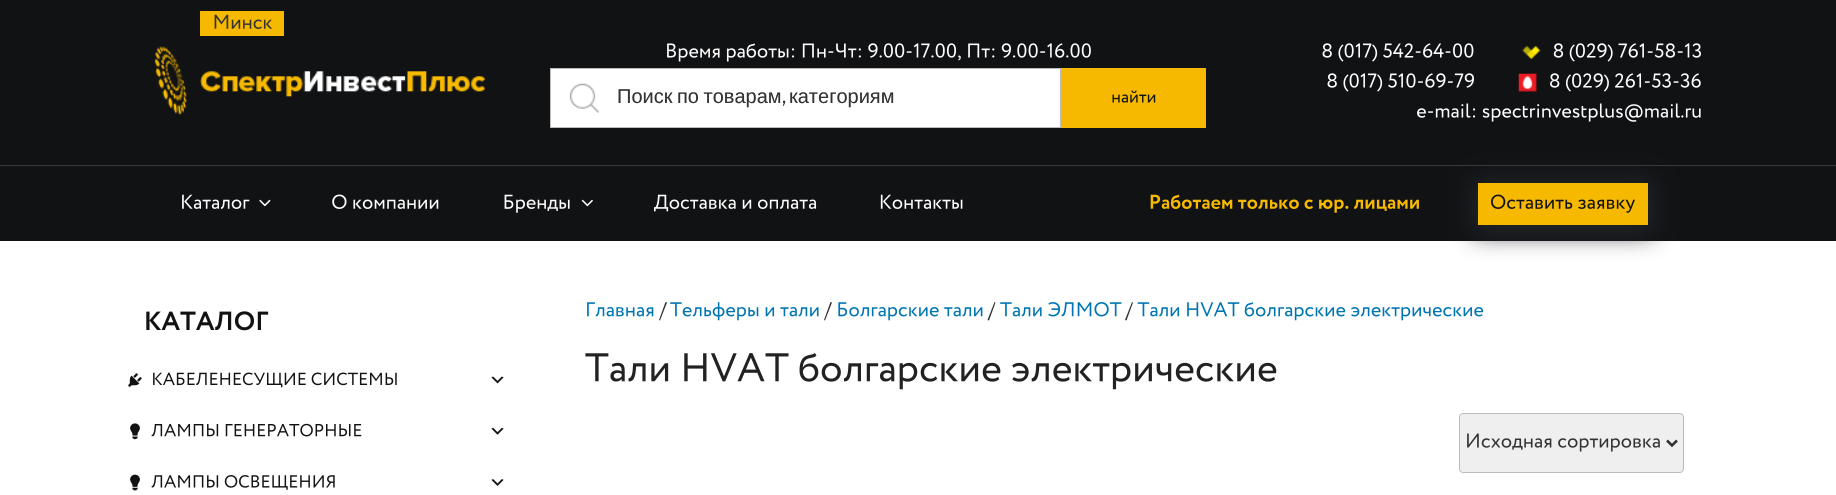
void draw(SkCanvas* canvas) {
    SkPaint paint;
    paint.setAntiAlias(true);
    auto spacedText = [&](const char* s, float x, float y, const SkFont& font, const SkPaint& ink, float letter, float word) {
        std::vector<SkGlyphID> glyphs(font.countText(s, strlen(s), SkTextEncoding::kUTF8));
        std::vector<float> xs(glyphs.size());
        font.textToGlyphs(s, strlen(s), SkTextEncoding::kUTF8, glyphs);
        font.getXPos(glyphs, xs, x);
        float extra = 0;
        for (size_t i = 0; i < glyphs.size(); i++) {
            xs[i] += extra;
            extra += letter + word * (glyphs[i] == font.unicharToGlyph(' '));
        }
        canvas->drawTextBlob(SkTextBlob::MakeFromPosHGlyphs(glyphs, xs, y, font), 0, 0, ink);
    };
    canvas->clear(0xFF111214);
    paint.setColor(0xFFF6B900);
    canvas->drawRect(SkRect::MakeXYWH(200, 11, 84, 25), paint);
    canvas->drawImageRect(SkImages::DeferredFromEncodedData(SkData::MakeFromFileName("img1.png")), SkRect::MakeXYWH(214, 14, 58, 15), SkSamplingOptions());
    canvas->drawImageRect(SkImages::DeferredFromEncodedData(SkData::MakeFromFileName("img2.png")), SkRect::MakeXYWH(154, 46, 331, 69), SkSamplingOptions());
    canvas->drawImageRect(SkImages::DeferredFromEncodedData(SkData::MakeFromFileName("img3.png")), SkRect::MakeXYWH(667, 43, 128, 19), SkSamplingOptions());
    canvas->drawImageRect(SkImages::DeferredFromEncodedData(SkData::MakeFromFileName("img4.png")), SkRect::MakeXYWH(802, 43, 289, 18), SkSamplingOptions());
    paint.setColor(0xFFFFFFFF);
    canvas->drawRect(SkRect::MakeXYWH(551, 69, 509, 58), paint);
    canvas->drawImageRect(SkImages::DeferredFromEncodedData(SkData::MakeFromFileName("img5.png")), SkRect::MakeXYWH(570, 83, 29, 30), SkSamplingOptions());
    paint.setStyle(SkPaint::kStroke_Style);
    paint.setStrokeWidth(1);
    paint.setColor(0xFFBBBBBB);
    canvas->drawRect(SkRect::MakeXYWH(550.5f, 68.5f, 510, 59), paint);
    SkFont font1(fontMgr->matchFamilyStyle("Liberation Sans", SkFontStyle::Normal()), 20);
    font1.setSubpixel(true);
    paint.setStyle(SkPaint::kFill_Style);
    paint.setColor(0xFF333333);
    spacedText("Поиск по товарам", 617, 103, font1, paint, 0, -1);
    SkFont font2(fontMgr->matchFamilyStyle("Libre Franklin", SkFontStyle(100, SkFontStyle::kNormal_Width, SkFontStyle::kUpright_Slant)), 20);
    font2.setSubpixel(true);
    canvas->drawString(",", 782, 103, font2, paint);
    canvas->drawString("категориям", 789, 103, font1, paint);
    paint.setColor(0xFFF6B900);
    canvas->drawRect(SkRect::MakeXYWH(1061, 68, 145, 60), paint);
    canvas->drawImageRect(SkImages::DeferredFromEncodedData(SkData::MakeFromFileName("img6.png")), SkRect::MakeXYWH(1112, 90, 44, 13), SkSamplingOptions());
    canvas->drawImageRect(SkImages::DeferredFromEncodedData(SkData::MakeFromFileName("img7.png")), SkRect::MakeXYWH(1322, 43, 152, 19), SkSamplingOptions());
    canvas->drawImageRect(SkImages::DeferredFromEncodedData(SkData::MakeFromFileName("img8.png")), SkRect::MakeXYWH(1327, 73, 147, 19), SkSamplingOptions());
    canvas->drawImageRect(SkImages::DeferredFromEncodedData(SkData::MakeFromFileName("img9.png")), SkRect::MakeXYWH(1522, 45, 19, 15), SkSamplingOptions());
    canvas->drawImageRect(SkImages::DeferredFromEncodedData(SkData::MakeFromFileName("img10.png")), SkRect::MakeXYWH(1553, 43, 148, 19), SkSamplingOptions());
    canvas->drawImageRect(SkImages::DeferredFromEncodedData(SkData::MakeFromFileName("img11.png")), SkRect::MakeXYWH(1518, 73, 19, 19), SkSamplingOptions());
    canvas->drawImageRect(SkImages::DeferredFromEncodedData(SkData::MakeFromFileName("img12.png")), SkRect::MakeXYWH(1550, 73, 151, 19), SkSamplingOptions());
    canvas->drawImageRect(SkImages::DeferredFromEncodedData(SkData::MakeFromFileName("img13.png")), SkRect::MakeXYWH(1417, 103, 284, 19), SkSamplingOptions());
    paint.setColor(0xFF3C3C3C);
    canvas->drawRect(SkRect::MakeXYWH(0, 165, 1836, 1), paint);
    canvas->drawImageRect(SkImages::DeferredFromEncodedData(SkData::MakeFromFileName("img14.png")), SkRect::MakeXYWH(182, 194, 68, 15), SkSamplingOptions());
    canvas->drawImageRect(SkImages::DeferredFromEncodedData(SkData::MakeFromFileName("img15.png")), SkRect::MakeXYWH(259, 199, 12, 8), SkSamplingOptions());
    canvas->drawImageRect(SkImages::DeferredFromEncodedData(SkData::MakeFromFileName("img16.png")), SkRect::MakeXYWH(332, 194, 107, 15), SkSamplingOptions());
    canvas->drawImageRect(SkImages::DeferredFromEncodedData(SkData::MakeFromFileName("img17.png")), SkRect::MakeXYWH(504, 194, 66, 19), SkSamplingOptions());
    canvas->drawImageRect(SkImages::DeferredFromEncodedData(SkData::MakeFromFileName("img18.png")), SkRect::MakeXYWH(581, 199, 12, 8), SkSamplingOptions());
    canvas->drawImageRect(SkImages::DeferredFromEncodedData(SkData::MakeFromFileName("img19.png")), SkRect::MakeXYWH(654, 194, 163, 18), SkSamplingOptions());
    canvas->drawImageRect(SkImages::DeferredFromEncodedData(SkData::MakeFromFileName("img20.png")), SkRect::MakeXYWH(880, 194, 83, 15), SkSamplingOptions());
    canvas->drawImageRect(SkImages::DeferredFromEncodedData(SkData::MakeFromFileName("img21.png")), SkRect::MakeXYWH(1150, 194, 269, 19), SkSamplingOptions());
    paint.setColor(0xFFFFFFFF);
    canvas->drawRect(SkRect::MakeXYWH(0, 241, 1836, 254), paint);
    paint.setColor(0xFF22242A);
    paint.setMaskFilter(SkMaskFilter::MakeBlur(kNormal_SkBlurStyle, 12.5f));
    canvas->drawRect(SkRect::MakeXYWH(1473, 180, 180, 53), paint);
    paint.setMaskFilter(nullptr);
    paint.setColor(0xFFF6B900);
    canvas->drawRect(SkRect::MakeXYWH(1478, 183, 170, 42), paint);
    canvas->drawImageRect(SkImages::DeferredFromEncodedData(SkData::MakeFromFileName("img22.png")), SkRect::MakeXYWH(1491, 194, 144, 19), SkSamplingOptions());
    canvas->drawImageRect(SkImages::DeferredFromEncodedData(SkData::MakeFromFileName("img23.png")), SkRect::MakeXYWH(146, 311, 123, 20), SkSamplingOptions());
    canvas->drawImageRect(SkImages::DeferredFromEncodedData(SkData::MakeFromFileName("img24.png")), SkRect::MakeXYWH(128, 373, 14, 14), SkSamplingOptions());
    canvas->drawImageRect(SkImages::DeferredFromEncodedData(SkData::MakeFromFileName("img25.png")), SkRect::MakeXYWH(153, 372, 244, 16), SkSamplingOptions());
    canvas->drawImageRect(SkImages::DeferredFromEncodedData(SkData::MakeFromFileName("img26.png")), SkRect::MakeXYWH(491, 376, 13, 8), SkSamplingOptions());
    canvas->drawImageRect(SkImages::DeferredFromEncodedData(SkData::MakeFromFileName("img27.png")), SkRect::MakeXYWH(130, 423, 10, 17), SkSamplingOptions());
    canvas->drawImageRect(SkImages::DeferredFromEncodedData(SkData::MakeFromFileName("img28.png")), SkRect::MakeXYWH(151, 423, 211, 14), SkSamplingOptions());
    canvas->drawImageRect(SkImages::DeferredFromEncodedData(SkData::MakeFromFileName("img29.png")), SkRect::MakeXYWH(491, 427, 13, 8), SkSamplingOptions());
    canvas->drawImageRect(SkImages::DeferredFromEncodedData(SkData::MakeFromFileName("img30.png")), SkRect::MakeXYWH(130, 474, 10, 17), SkSamplingOptions());
    canvas->drawImageRect(SkImages::DeferredFromEncodedData(SkData::MakeFromFileName("img31.png")), SkRect::MakeXYWH(151, 475, 184, 15), SkSamplingOptions());
    canvas->drawImageRect(SkImages::DeferredFromEncodedData(SkData::MakeFromFileName("img32.png")), SkRect::MakeXYWH(491, 479, 13, 7), SkSamplingOptions());
    canvas->drawImageRect(SkImages::DeferredFromEncodedData(SkData::MakeFromFileName("img33.png")), SkRect::MakeXYWH(587, 302, 67, 15), SkSamplingOptions());
    paint.setColor(0xFF333333);
    canvas->drawPath(SkPathBuilder().moveTo(659, 320).lineTo(665.5f, 302).lineTo(667, 302.5f).lineTo(660, 320.5f).close().detach(), paint);
    canvas->drawImageRect(SkImages::DeferredFromEncodedData(SkData::MakeFromFileName("img34.png")), SkRect::MakeXYWH(670, 302, 149, 19), SkSamplingOptions());
    canvas->drawPath(SkPathBuilder().moveTo(824, 320).lineTo(830.5f, 302).lineTo(832, 302.5f).lineTo(825, 320.5f).close().detach(), paint);
    canvas->drawImageRect(SkImages::DeferredFromEncodedData(SkData::MakeFromFileName("img35.png")), SkRect::MakeXYWH(838, 302, 145, 19), SkSamplingOptions());
    canvas->drawPath(SkPathBuilder().moveTo(987.5f, 320).lineTo(994.5f, 302).lineTo(995.5f, 302.5f).lineTo(989, 320.5f).close().detach(), paint);
    canvas->drawImageRect(SkImages::DeferredFromEncodedData(SkData::MakeFromFileName("img36.png")), SkRect::MakeXYWH(1000, 302, 122, 15), SkSamplingOptions());
    canvas->drawPath(SkPathBuilder().moveTo(1125, 320).lineTo(1132, 302).lineTo(1133, 302.5f).lineTo(1126.5f, 320.5f).close().detach(), paint);
    canvas->drawImageRect(SkImages::DeferredFromEncodedData(SkData::MakeFromFileName("img37.png")), SkRect::MakeXYWH(1137, 302, 347, 19), SkSamplingOptions());
    canvas->drawImageRect(SkImages::DeferredFromEncodedData(SkData::MakeFromFileName("img38.png")), SkRect::MakeXYWH(585, 353, 692, 37), SkSamplingOptions());
    paint.setColor(0xFFEFEFEF);
    canvas->drawRoundRect(SkRect::MakeXYWH(1459.5f, 413.5f, 224, 59), 3.5f, 3.5f, paint);
    paint.setStyle(SkPaint::kStroke_Style);
    paint.setColor(0xFFBBBBBB);
    canvas->drawRoundRect(SkRect::MakeXYWH(1459.5f, 413.5f, 224, 59), 3.5f, 3.5f, paint);
    paint.setStrokeWidth(2.5f);
    paint.setColor(0xFF333333);
    canvas->drawPath(SkPathBuilder().moveTo(1667, 440.5f).lineTo(1672, 445.5f).lineTo(1677, 440.5f).detach(), paint);
    canvas->drawImageRect(SkImages::DeferredFromEncodedData(SkData::MakeFromFileName("img39.png")), SkRect::MakeXYWH(1467, 433, 193, 19), SkSamplingOptions());
}
